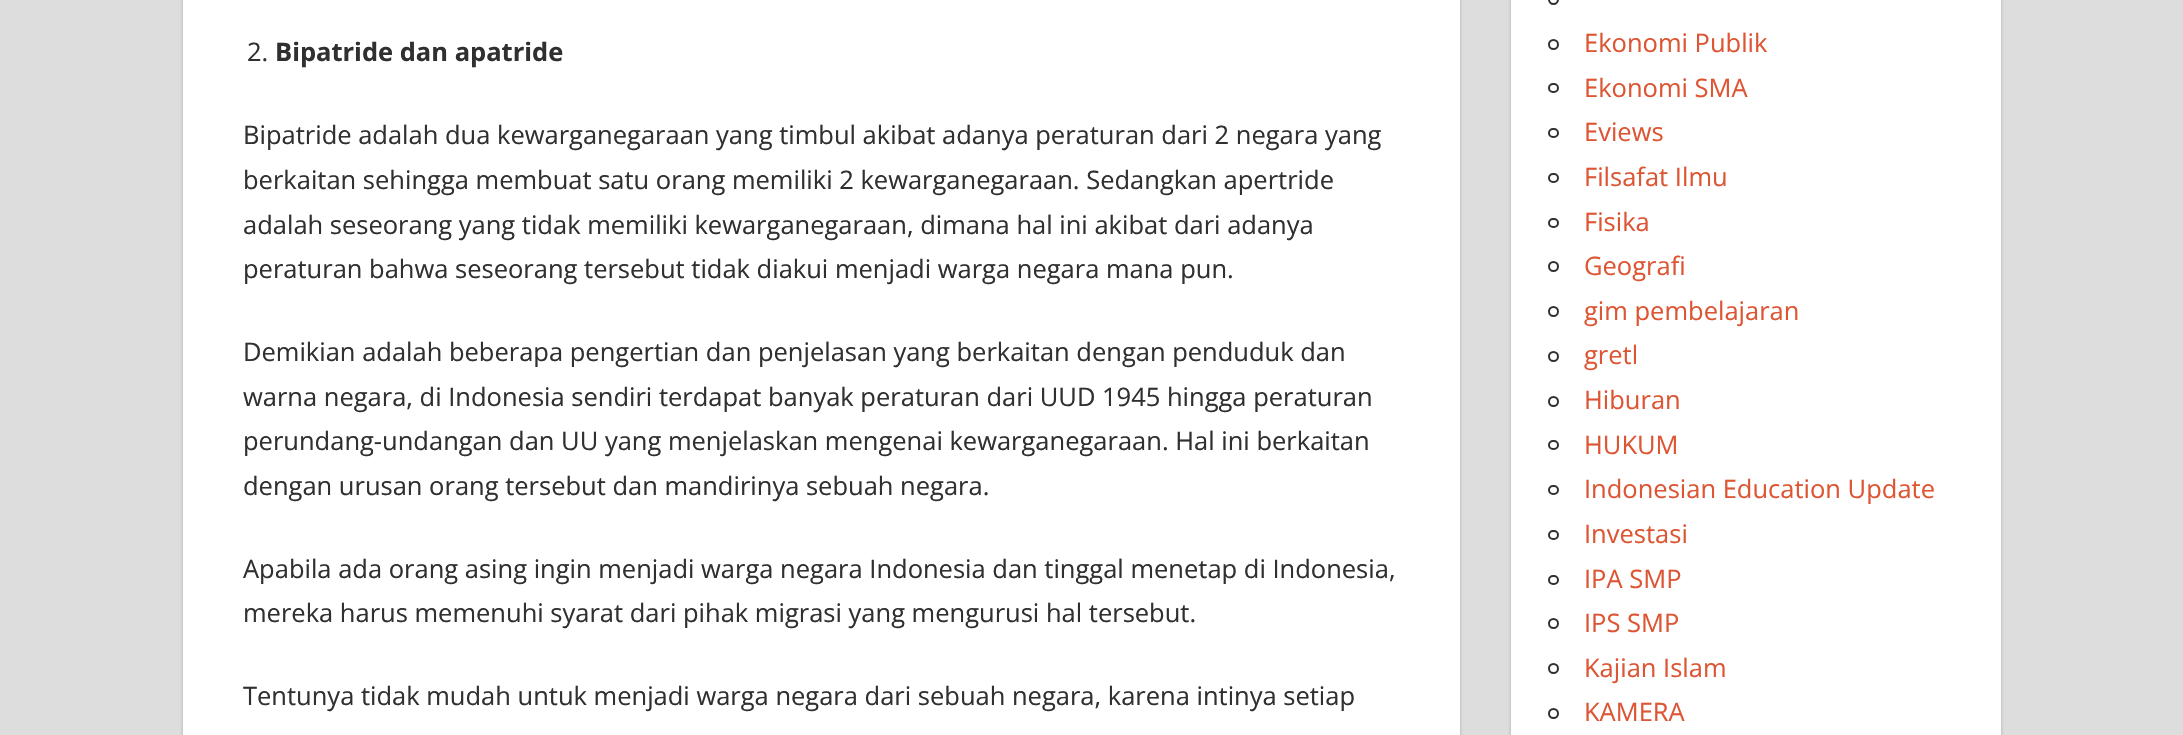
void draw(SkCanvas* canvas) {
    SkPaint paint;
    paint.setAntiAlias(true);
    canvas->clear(0xFFDDDDDD);
    paint.setColor(0xFFAAAAAA);
    paint.setMaskFilter(SkMaskFilter::MakeBlur(kNormal_SkBlurStyle, 1.5f));
    canvas->drawRect(SkRect::MakeXYWH(183, -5, 1277, 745), paint);
    paint.setMaskFilter(nullptr);
    paint.setColor(0xFFFFFFFF);
    canvas->drawRect(SkRect::MakeXYWH(183, 0, 1277, 735), paint);
    SkFont font1(fontMgr->matchFamilyStyle("Open Sans", SkFontStyle::Normal()), 25.5f);
    font1.setSubpixel(true);
    paint.setColor(0xFF303030);
    canvas->drawString("2.", 247, 61, font1, paint);
    SkFont font2(fontMgr->matchFamilyStyle("Open Sans", SkFontStyle::Bold()), 25.5f);
    font2.setSubpixel(true);
    canvas->drawString("Bipatride dan apatride", 275, 61, font2, paint);
    canvas->drawString("Bipatride adalah dua kewarganegaraan yang timbul akibat adanya peraturan dari 2 negara yang", 243, 144, font1, paint);
    canvas->drawString("berkaitan sehingga membuat satu orang memiliki 2 kewarganegaraan. Sedangkan apertride", 243, 189, font1, paint);
    canvas->drawString("adalah seseorang yang tidak memiliki kewarganegaraan, dimana hal ini akibat dari adanya", 243, 234, font1, paint);
    canvas->drawString("peraturan bahwa seseorang tersebut tidak diakui menjadi warga negara mana pun.", 243, 278, font1, paint);
    canvas->drawString("Demikian adalah beberapa pengertian dan penjelasan yang berkaitan dengan penduduk dan", 243, 361, font1, paint);
    canvas->drawString("warna negara, di Indonesia sendiri terdapat banyak peraturan dari UUD 1945 hingga peraturan", 243, 406, font1, paint);
    canvas->drawString("perundang-undangan dan UU yang menjelaskan mengenai kewarganegaraan. Hal ini berkaitan", 243, 450, font1, paint);
    canvas->drawString("dengan urusan orang tersebut dan mandirinya sebuah negara.", 243, 495, font1, paint);
    canvas->drawString("Apabila ada orang asing ingin menjadi warga negara Indonesia dan tinggal menetap di Indonesia,", 243, 578, font1, paint);
    canvas->drawString("mereka harus memenuhi syarat dari pihak migrasi yang mengurusi hal tersebut.", 243, 622, font1, paint);
    canvas->drawString("Tentunya tidak mudah untuk menjadi warga negara dari sebuah negara, karena intinya setiap", 243, 705, font1, paint);
    paint.setColor(0xFFAAAAAA);
    paint.setMaskFilter(SkMaskFilter::MakeBlur(kNormal_SkBlurStyle, 1.5f));
    canvas->drawRect(SkRect::MakeXYWH(1511, -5, 490, 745), paint);
    paint.setMaskFilter(nullptr);
    paint.setColor(0xFFFFFFFF);
    canvas->drawRect(SkRect::MakeXYWH(1511, 0, 490, 735), paint);
    paint.setStyle(SkPaint::kStroke_Style);
    paint.setStrokeWidth(2);
    paint.setColor(0xFF303030);
    canvas->drawCircle(1553.5f, -0.5f, 4.5f, paint);
    canvas->drawCircle(1553.5f, 44.5f, 4.5f, paint);
    paint.setStyle(SkPaint::kFill_Style);
    paint.setColor(0xFFDD5533);
    canvas->drawString("Ekonomi Publik", 1584, 52, font1, paint);
    paint.setStyle(SkPaint::kStroke_Style);
    paint.setColor(0xFF303030);
    canvas->drawRoundRect(SkRect::MakeXYWH(1549, 84, 9, 8), 4, 4, paint);
    paint.setStyle(SkPaint::kFill_Style);
    paint.setColor(0xFFDD5533);
    canvas->drawString("Ekonomi SMA", 1584, 97, font1, paint);
    paint.setStyle(SkPaint::kStroke_Style);
    paint.setColor(0xFF303030);
    canvas->drawRoundRect(SkRect::MakeXYWH(1549, 129, 9, 8), 4, 4, paint);
    paint.setStyle(SkPaint::kFill_Style);
    paint.setColor(0xFFDD5533);
    canvas->drawString("Eviews", 1584, 141, font1, paint);
    paint.setStyle(SkPaint::kStroke_Style);
    paint.setColor(0xFF303030);
    canvas->drawRoundRect(SkRect::MakeXYWH(1549, 174, 9, 8), 4, 4, paint);
    paint.setStyle(SkPaint::kFill_Style);
    paint.setColor(0xFFDD5533);
    canvas->drawString("Filsafat Ilmu", 1584, 186, font1, paint);
    paint.setStyle(SkPaint::kStroke_Style);
    paint.setColor(0xFF303030);
    canvas->drawRoundRect(SkRect::MakeXYWH(1549, 219, 9, 8), 4, 4, paint);
    paint.setStyle(SkPaint::kFill_Style);
    paint.setColor(0xFFDD5533);
    canvas->drawString("Fisika", 1584, 231, font1, paint);
    paint.setStyle(SkPaint::kStroke_Style);
    paint.setColor(0xFF303030);
    canvas->drawCircle(1553.5f, 266.5f, 4.5f, paint);
    paint.setStyle(SkPaint::kFill_Style);
    paint.setColor(0xFFDD5533);
    canvas->drawString("Geografi", 1584, 275, font1, paint);
    paint.setStyle(SkPaint::kStroke_Style);
    paint.setColor(0xFF303030);
    canvas->drawCircle(1553.5f, 311.5f, 4.5f, paint);
    paint.setStyle(SkPaint::kFill_Style);
    paint.setColor(0xFFDD5533);
    canvas->drawString("gim pembelajaran", 1584, 320, font1, paint);
    paint.setStyle(SkPaint::kStroke_Style);
    paint.setColor(0xFF303030);
    canvas->drawCircle(1553.5f, 356.5f, 4.5f, paint);
    paint.setStyle(SkPaint::kFill_Style);
    paint.setColor(0xFFDD5533);
    canvas->drawString("gretl", 1584, 364, font1, paint);
    paint.setStyle(SkPaint::kStroke_Style);
    paint.setColor(0xFF303030);
    canvas->drawCircle(1553.5f, 401.5f, 4.5f, paint);
    paint.setStyle(SkPaint::kFill_Style);
    paint.setColor(0xFFDD5533);
    canvas->drawString("Hiburan", 1584, 409, font1, paint);
    paint.setStyle(SkPaint::kStroke_Style);
    paint.setColor(0xFF303030);
    canvas->drawRoundRect(SkRect::MakeXYWH(1549, 441, 9, 8), 4, 4, paint);
    paint.setStyle(SkPaint::kFill_Style);
    paint.setColor(0xFFDD5533);
    canvas->drawString("HUKUM", 1584, 454, font1, paint);
    paint.setStyle(SkPaint::kStroke_Style);
    paint.setColor(0xFF303030);
    canvas->drawRoundRect(SkRect::MakeXYWH(1549, 486, 9, 8), 4, 4, paint);
    paint.setStyle(SkPaint::kFill_Style);
    paint.setColor(0xFFDD5533);
    canvas->drawString("Indonesian Education Update", 1584, 498, font1, paint);
    paint.setStyle(SkPaint::kStroke_Style);
    paint.setColor(0xFF303030);
    canvas->drawRoundRect(SkRect::MakeXYWH(1549, 531, 9, 8), 4, 4, paint);
    paint.setStyle(SkPaint::kFill_Style);
    paint.setColor(0xFFDD5533);
    canvas->drawString("Investasi", 1584, 543, font1, paint);
    paint.setStyle(SkPaint::kStroke_Style);
    paint.setColor(0xFF303030);
    canvas->drawRoundRect(SkRect::MakeXYWH(1549, 576, 9, 8), 4, 4, paint);
    paint.setStyle(SkPaint::kFill_Style);
    paint.setColor(0xFFDD5533);
    canvas->drawString("IPA SMP", 1584, 588, font1, paint);
    paint.setStyle(SkPaint::kStroke_Style);
    paint.setColor(0xFF303030);
    canvas->drawCircle(1553.5f, 623.5f, 4.5f, paint);
    paint.setStyle(SkPaint::kFill_Style);
    paint.setColor(0xFFDD5533);
    canvas->drawString("IPS SMP", 1584, 632, font1, paint);
    paint.setStyle(SkPaint::kStroke_Style);
    paint.setColor(0xFF303030);
    canvas->drawCircle(1553.5f, 668.5f, 4.5f, paint);
    paint.setStyle(SkPaint::kFill_Style);
    paint.setColor(0xFFDD5533);
    canvas->drawString("Kajian Islam", 1584, 677, font1, paint);
    paint.setStyle(SkPaint::kStroke_Style);
    paint.setColor(0xFF303030);
    canvas->drawCircle(1553.5f, 713.5f, 4.5f, paint);
    paint.setStyle(SkPaint::kFill_Style);
    paint.setColor(0xFFDD5533);
    canvas->drawString("KAMERA", 1584, 721, font1, paint);
}
